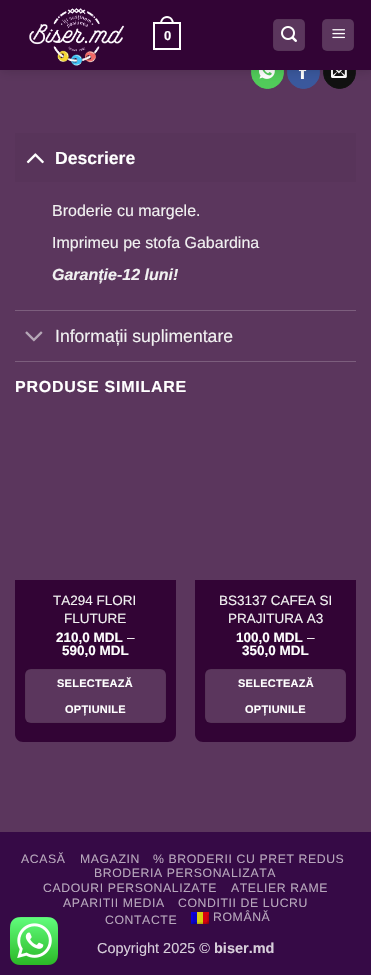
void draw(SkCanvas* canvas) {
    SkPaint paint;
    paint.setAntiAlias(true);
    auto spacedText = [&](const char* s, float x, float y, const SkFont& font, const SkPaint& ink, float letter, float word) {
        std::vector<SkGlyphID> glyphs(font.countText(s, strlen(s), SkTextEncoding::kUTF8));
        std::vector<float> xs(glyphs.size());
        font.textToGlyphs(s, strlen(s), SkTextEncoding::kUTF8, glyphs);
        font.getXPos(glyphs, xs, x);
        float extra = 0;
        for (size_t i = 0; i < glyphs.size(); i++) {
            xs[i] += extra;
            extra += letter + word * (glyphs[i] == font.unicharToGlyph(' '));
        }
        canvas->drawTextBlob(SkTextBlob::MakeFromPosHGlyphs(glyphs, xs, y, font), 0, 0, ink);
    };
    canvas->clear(0xFF5B365D);
    paint.setColor(0xFF51CB5A);
    canvas->drawRoundRect(SkRect::MakeXYWH(251.5f, 55.5f, 32, 33), 16, 16, paint);
    paint.setStyle(SkPaint::kStroke_Style);
    paint.setStrokeWidth(1);
    canvas->drawRoundRect(SkRect::MakeXYWH(251.5f, 55.5f, 32, 33), 16, 16, paint);
    canvas->drawImageRect(SkImages::DeferredFromEncodedData(SkData::MakeFromFileName("img4.png")), SkRect::MakeXYWH(259, 70, 16, 9), SkSamplingOptions());
    paint.setStyle(SkPaint::kFill_Style);
    paint.setColor(0xFF3A589D);
    canvas->drawRoundRect(SkRect::MakeXYWH(287.5f, 55.5f, 32, 33), 16, 16, paint);
    paint.setStyle(SkPaint::kStroke_Style);
    canvas->drawRoundRect(SkRect::MakeXYWH(287.5f, 55.5f, 32, 33), 16, 16, paint);
    canvas->drawImageRect(SkImages::DeferredFromEncodedData(SkData::MakeFromFileName("img5.png")), SkRect::MakeXYWH(298, 70, 9, 9), SkSamplingOptions());
    paint.setStyle(SkPaint::kFill_Style);
    paint.setColor(0xFF111111);
    canvas->drawRoundRect(SkRect::MakeXYWH(323.5f, 55.5f, 32, 33), 16, 16, paint);
    paint.setStyle(SkPaint::kStroke_Style);
    canvas->drawRoundRect(SkRect::MakeXYWH(323.5f, 55.5f, 32, 33), 16, 16, paint);
    canvas->drawImageRect(SkImages::DeferredFromEncodedData(SkData::MakeFromFileName("img6.png")), SkRect::MakeXYWH(331, 70, 16, 8), SkSamplingOptions());
    paint.setStyle(SkPaint::kFill_Style);
    paint.setColor(0x26000000);
    paint.setMaskFilter(SkMaskFilter::MakeBlur(kNormal_SkBlurStyle, 5));
    canvas->drawRect(SkRect::MakeXYWH(1, 1, 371, 70), paint);
    paint.setMaskFilter(nullptr);
    paint.setColor(0xFF320435);
    canvas->drawRect(SkRect::MakeXYWH(0, 0, 371, 70), paint);
    canvas->drawImageRect(SkImages::DeferredFromEncodedData(SkData::MakeFromFileName("img1.png")), SkRect::MakeXYWH(29, 8, 96, 58), SkSamplingOptions());
    paint.setStyle(SkPaint::kStroke_Style);
    paint.setStrokeWidth(2);
    paint.setColor(0xFFFFFFFF);
    canvas->drawRect(SkRect::MakeXYWH(154, 23, 26, 26), paint);
    paint.setStyle(SkPaint::kFill_Style);
    canvas->drawPath(SkPathBuilder(SkPathFillType::kEvenOdd).moveTo(167, 16).cubicTo(171.5f, 16, 174, 20, 174, 24).lineTo(160, 24).cubicTo(160, 20, 162.5f, 16, 167, 16).close().moveTo(167, 18).cubicTo(170.5f, 18, 172, 21, 172, 24).lineTo(162, 24).cubicTo(162, 21, 163.5f, 18, 167, 18).close().detach(), paint);
    SkFont font1(fontMgr->matchFamilyStyle("Liberation Sans", SkFontStyle::Bold()), 13);
    font1.setSubpixel(true);
    canvas->drawString("0", 164, 40, font1, paint);
    paint.setColor(0xFF5B365D);
    canvas->drawRoundRect(SkRect::MakeXYWH(273, 19, 32, 32), 5, 5, paint);
    paint.setStyle(SkPaint::kStroke_Style);
    paint.setStrokeWidth(1);
    paint.setColor(0x0D000000);
    canvas->drawRect(SkRect::MakeXYWH(273.5f, 19.5f, 31, 31), paint);
    canvas->drawImageRect(SkImages::DeferredFromEncodedData(SkData::MakeFromFileName("img2.png")), SkRect::MakeXYWH(281, 26, 16, 16), SkSamplingOptions());
    paint.setStyle(SkPaint::kFill_Style);
    paint.setColor(0xFF5B365D);
    canvas->drawRoundRect(SkRect::MakeXYWH(322, 19, 32, 32), 5, 5, paint);
    paint.setStyle(SkPaint::kStroke_Style);
    paint.setColor(0x0D000000);
    canvas->drawRect(SkRect::MakeXYWH(322.5f, 19.5f, 31, 31), paint);
    canvas->drawImageRect(SkImages::DeferredFromEncodedData(SkData::MakeFromFileName("img3.png")), SkRect::MakeXYWH(332, 29, 13, 10), SkSamplingOptions());
    paint.setStyle(SkPaint::kFill_Style);
    paint.setColor(0xFF58345A);
    canvas->drawRect(SkRect::MakeXYWH(15, 133, 341, 49), paint);
    canvas->drawImageRect(SkImages::DeferredFromEncodedData(SkData::MakeFromFileName("img7.png")), SkRect::MakeXYWH(26, 153, 18, 11), SkSamplingOptions());
    SkFont font2(fontMgr->matchFamilyStyle("Liberation Sans", SkFontStyle::Bold()), 17.6f);
    font2.setSubpixel(true);
    paint.setColor(0xFFFFFFFF);
    canvas->drawString("Descriere", 55, 164, font2, paint);
    SkFont font3(fontMgr->matchFamilyStyle("Liberation Sans", SkFontStyle::Normal()), 16);
    font3.setSubpixel(true);
    paint.setColor(0xFFF1F1F1);
    canvas->drawString("Broderie cu margele.", 52, 216, font3, paint);
    canvas->drawString("Imprimeu pe stofa Gabardina", 52, 248, font3, paint);
    SkFont font4(fontMgr->matchFamilyStyle("Liberation Sans", SkFontStyle::BoldItalic()), 16);
    font4.setSubpixel(true);
    canvas->drawString("Garanție-12 luni!", 52, 280, font4, paint);
    paint.setColor(0xFF7C5E7D);
    canvas->drawRect(SkRect::MakeXYWH(15, 310, 341, 1), paint);
    canvas->drawImageRect(SkImages::DeferredFromEncodedData(SkData::MakeFromFileName("img8.png")), SkRect::MakeXYWH(25, 331, 18, 11), SkSamplingOptions());
    SkFont font5(fontMgr->matchFamilyStyle("Liberation Sans", SkFontStyle::Normal()), 17.6f);
    font5.setSubpixel(true);
    paint.setColor(0xFFF1F1F1);
    canvas->drawString("Informații suplimentare", 55, 342, font5, paint);
    paint.setColor(0xFF7C5E7D);
    canvas->drawRect(SkRect::MakeXYWH(15, 361, 341, 1), paint);
    SkFont font6(fontMgr->matchFamilyStyle("Liberation Sans", SkFontStyle::Bold()), 16);
    font6.setSubpixel(true);
    paint.setColor(0xFFFFFFFF);
    spacedText("PRODUSE SIMILARE", 15, 392, font6, paint, 0.75f, 0);
    paint.setColor(0xFF320435);
    canvas->drawPath(SkPathBuilder().moveTo(15, 580).lineTo(176, 580).lineTo(176, 734).cubicTo(176, 738.5f, 172.5f, 742, 168, 742).lineTo(23, 742).cubicTo(18.5f, 742, 15, 738.5f, 15, 734).close().detach(), paint);
    SkFont font7(fontMgr->matchFamilyStyle("Liberation Sans", SkFontStyle::Normal()), 13.5f);
    font7.setSubpixel(true);
    paint.setColor(0xFFF1F1F1);
    canvas->drawString("TA294 FLORI", 53, 605, font7, paint);
    canvas->drawString("FLUTURE", 64, 623, font7, paint);
    SkFont font8(fontMgr->matchFamilyStyle("Liberation Sans", SkFontStyle::Bold()), 13.5f);
    font8.setSubpixel(true);
    paint.setColor(0xFFFFFFFF);
    canvas->drawString("210,0 MDL", 56, 642, font8, paint);
    canvas->drawString("–", 127, 642, font7, paint);
    canvas->drawString("590,0 MDL", 62, 655, font8, paint);
    paint.setColor(0xFF5B365D);
    canvas->drawRoundRect(SkRect::MakeXYWH(25, 669, 141, 54), 6, 6, paint);
    paint.setStyle(SkPaint::kStroke_Style);
    paint.setColor(0x0D000000);
    canvas->drawRect(SkRect::MakeXYWH(25.5f, 669.5f, 140, 53), paint);
    SkFont font9(fontMgr->matchFamilyStyle("Liberation Sans", SkFontStyle::Bold()), 11);
    font9.setSubpixel(true);
    paint.setStyle(SkPaint::kFill_Style);
    paint.setColor(0xFFFFFFFF);
    spacedText("SELECTEAZĂ", 57, 687, font9, paint, 0.25f, 0);
    spacedText("OPȚIUNILE", 65, 713, font9, paint, 0.25f, 0);
    paint.setColor(0xFF320435);
    canvas->drawPath(SkPathBuilder().moveTo(195, 580).lineTo(356, 580).lineTo(356, 734).cubicTo(356, 738.5f, 352.5f, 742, 348, 742).lineTo(203, 742).cubicTo(198.5f, 742, 195, 738.5f, 195, 734).close().detach(), paint);
    paint.setColor(0xFFF1F1F1);
    canvas->drawString("BS3137 CAFEA SI", 219, 605, font7, paint);
    canvas->drawString("PRAJITURA A3", 228, 623, font7, paint);
    paint.setColor(0xFFFFFFFF);
    canvas->drawString("100,0 MDL", 236, 642, font8, paint);
    canvas->drawString("–", 307, 642, font7, paint);
    canvas->drawString("350,0 MDL", 242, 655, font8, paint);
    paint.setColor(0xFF5B365D);
    canvas->drawRoundRect(SkRect::MakeXYWH(205, 669, 141, 54), 6, 6, paint);
    paint.setStyle(SkPaint::kStroke_Style);
    paint.setColor(0x0D000000);
    canvas->drawRect(SkRect::MakeXYWH(205.5f, 669.5f, 140, 53), paint);
    paint.setStyle(SkPaint::kFill_Style);
    paint.setColor(0xFFFFFFFF);
    spacedText("SELECTEAZĂ", 238, 687, font9, paint, 0.25f, 0);
    spacedText("OPȚIUNILE", 245, 713, font9, paint, 0.25f, 0);
    paint.setColor(0xFF360A46);
    canvas->drawRect(SkRect::MakeXYWH(0, 832, 371, 143), paint);
    SkFont font10(fontMgr->matchFamilyStyle("Liberation Sans", SkFontStyle::Normal()), 12.25f);
    font10.setSubpixel(true);
    paint.setColor(0xFFB7A7BC);
    spacedText("ACASĂ", 21, 863, font10, paint, 0.6f, 0);
    spacedText("MAGAZIN", 80, 863, font10, paint, 0.6f, 0);
    spacedText("% BRODERII CU PRET REDUS", 153, 863, font10, paint, 0.6f, 0);
    spacedText("BRODERIA PERSONALIZATA", 94, 877, font10, paint, 0.6f, 0);
    spacedText("CADOURI PERSONALIZATE", 43, 892, font10, paint, 0.6f, 0);
    spacedText("ATELIER RAME", 231, 892, font10, paint, 0.6f, 0);
    spacedText("APARITII MEDIA", 63, 907, font10, paint, 0.6f, 0);
    spacedText("CONDITII DE LUCRU", 178, 907, font10, paint, 0.6f, 0);
    spacedText("CONTACTE", 105, 924, font10, paint, 0.6f, 0);
    canvas->drawImageRect(SkImages::DeferredFromEncodedData(SkData::MakeFromFileName("img9.png")), SkRect::MakeXYWH(191, 912, 18, 12), SkSamplingOptions());
    spacedText("ROMÂNĂ", 213, 921, font10, paint, 0.6f, 0);
    SkFont font11(fontMgr->matchFamilyStyle("Liberation Sans", SkFontStyle::Normal()), 14.5f);
    font11.setSubpixel(true);
    paint.setColor(0xFFD7CEDA);
    canvas->drawString("Copyright 2025 ©", 97, 953, font11, paint);
    SkFont font12(fontMgr->matchFamilyStyle("Liberation Sans", SkFontStyle::Bold()), 14.5f);
    font12.setSubpixel(true);
    canvas->drawString("biser.md", 214, 953, font12, paint);
    canvas->drawImageRect(SkImages::DeferredFromEncodedData(SkData::MakeFromFileName("img10.png")), SkRect::MakeXYWH(10, 917, 48, 48), SkSamplingOptions());
}
